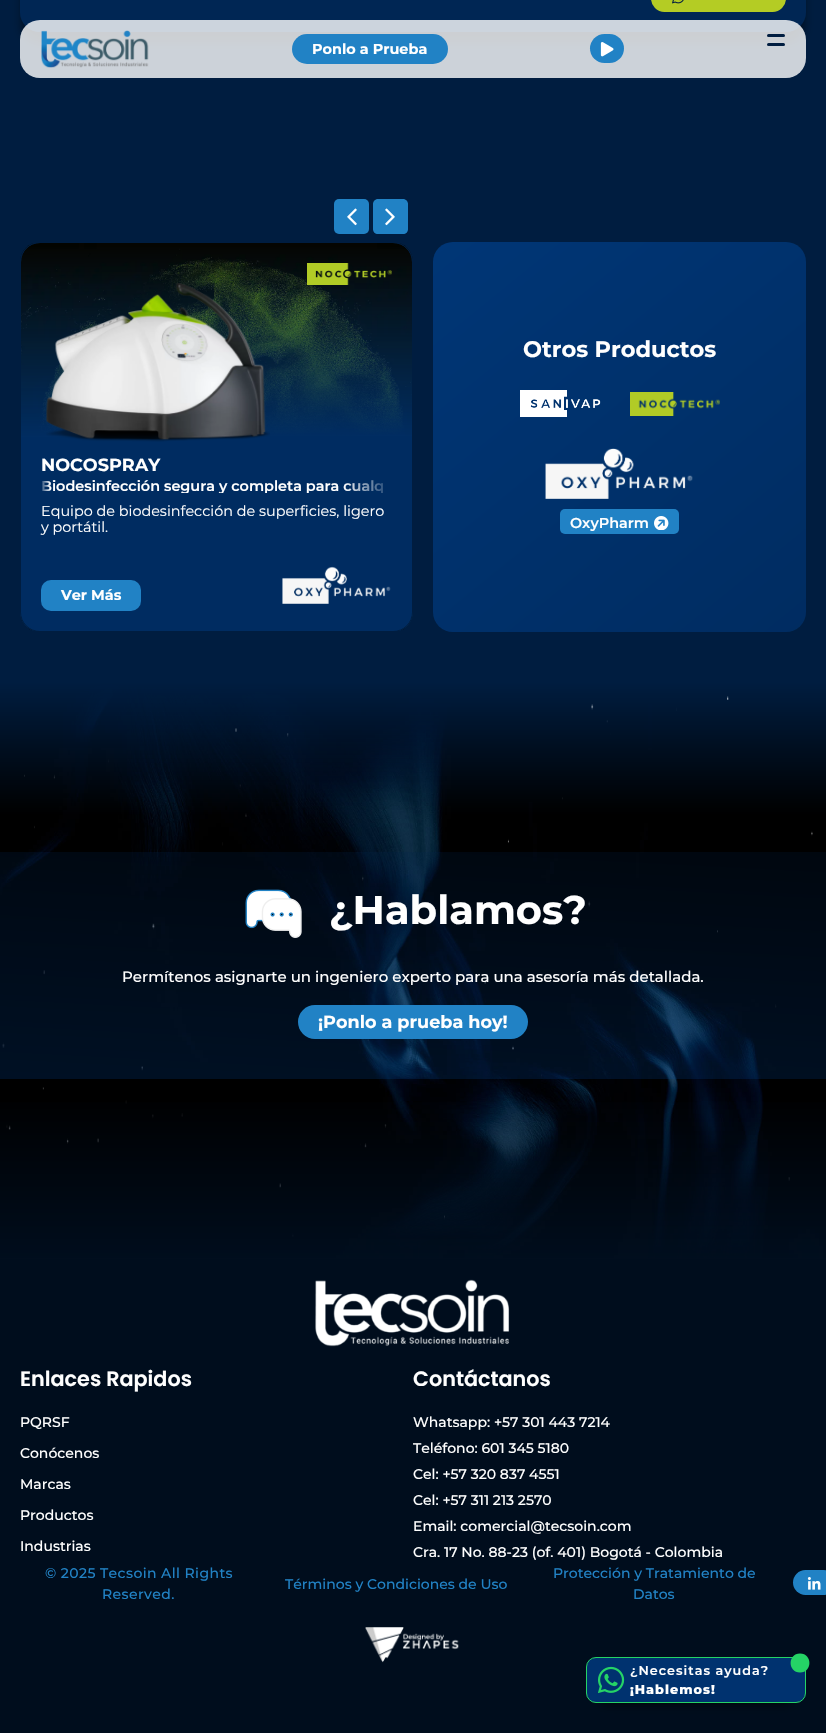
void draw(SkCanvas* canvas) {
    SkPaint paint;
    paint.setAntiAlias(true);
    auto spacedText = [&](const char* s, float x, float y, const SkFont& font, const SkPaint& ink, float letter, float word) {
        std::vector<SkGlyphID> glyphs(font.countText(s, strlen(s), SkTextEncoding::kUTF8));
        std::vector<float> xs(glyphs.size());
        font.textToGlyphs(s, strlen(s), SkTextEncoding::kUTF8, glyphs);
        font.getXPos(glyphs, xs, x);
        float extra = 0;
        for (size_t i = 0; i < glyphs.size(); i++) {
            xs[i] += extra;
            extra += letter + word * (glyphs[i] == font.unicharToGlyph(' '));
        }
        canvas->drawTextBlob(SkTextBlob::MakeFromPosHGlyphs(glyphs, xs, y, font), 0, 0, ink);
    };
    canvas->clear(0xFFFFFFFF);
    canvas->drawImageRect(SkImages::DeferredFromEncodedData(SkData::MakeFromFileName("img3.png")), SkRect::MakeXYWH(0, 0, 826, 192), SkSamplingOptions());
    canvas->save();
    canvas->clipPath(SkPathBuilder(SkPathFillType::kEvenOdd).moveTo(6, 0).lineTo(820, 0).lineTo(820, 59).lineTo(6, 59).close().moveTo(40, -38).lineTo(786, -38).cubicTo(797, -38, 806, -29, 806, -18).lineTo(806, 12).cubicTo(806, 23, 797, 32, 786, 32).lineTo(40, 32).cubicTo(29, 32, 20, 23, 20, 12).lineTo(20, -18).cubicTo(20, -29, 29, -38, 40, -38).close().detach(), true);
    paint.setColor(0x80000000);
    paint.setMaskFilter(SkMaskFilter::MakeBlur(kNormal_SkBlurStyle, 5));
    canvas->drawRoundRect(SkRect::MakeXYWH(22, -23, 782, 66), 18, 18, paint);
    paint.setMaskFilter(nullptr);
    canvas->restore();
    paint.setColor(0x99002C61);
    canvas->drawRoundRect(SkRect::MakeXYWH(20, -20, 786, 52), 20, 20, paint);
    paint.setColor(0xCCFFFFFF);
    canvas->drawRoundRect(SkRect::MakeXYWH(20, 20, 786, 58), 20, 20, paint);
    canvas->drawImageRect(SkImages::DeferredFromEncodedData(SkData::MakeFromFileName("img1.png")), SkRect::MakeXYWH(41, 30, 108, 38), SkSamplingOptions());
    paint.setColor(0xFF2182C5);
    canvas->drawRoundRect(SkRect::MakeXYWH(590, 34, 34, 29), 14.5f, 14.5f, paint);
    canvas->drawImageRect(SkImages::DeferredFromEncodedData(SkData::MakeFromFileName("img2.png")), SkRect::MakeXYWH(600, 42, 14, 15), SkSamplingOptions());
    paint.setColor(0xFF001D40);
    canvas->drawRoundRect(SkRect::MakeXYWH(767, 43, 18, 3), 1.5f, 1.5f, paint);
    canvas->drawRoundRect(SkRect::MakeXYWH(767, 34, 18, 3), 1.5f, 1.5f, paint);
    paint.setColor(0xFF2182C5);
    canvas->drawRoundRect(SkRect::MakeXYWH(292, 34, 156, 30), 15, 15, paint);
    SkFont font1(fontMgr->matchFamilyStyle("Montserrat", SkFontStyle::Bold()), 14.4f);
    font1.setSubpixel(true);
    paint.setColor(0xFFFFFFFF);
    canvas->drawString("Ponlo a Prueba", 312, 54, font1, paint);
    paint.setColor(0xFFB4CC24);
    canvas->drawRoundRect(SkRect::MakeXYWH(651, -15, 135, 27), 15, 15, paint);
    canvas->drawImageRect(SkImages::DeferredFromEncodedData(SkData::MakeFromFileName("img4.png")), SkRect::MakeXYWH(672, 0, 12, 4), SkSamplingOptions());
    paint.setColor(0xFF001D40);
    canvas->drawRect(SkRect::MakeXYWH(0, 192, 826, 490), paint);
    paint.setColor(0xFF2182C5);
    canvas->drawRoundRect(SkRect::MakeXYWH(334, 199, 35, 35), 5, 5, paint);
    canvas->drawImageRect(SkImages::DeferredFromEncodedData(SkData::MakeFromFileName("img5.png")), SkRect::MakeXYWH(347, 208, 10, 18), SkSamplingOptions());
    canvas->drawPath(SkPathBuilder().moveTo(403, 199).lineTo(378, 199).cubicTo(375, 199, 373, 201.5f, 373, 204).lineTo(373, 229).cubicTo(373, 232, 375, 234, 378, 234).lineTo(403, 234).cubicTo(406, 234, 408, 232, 408, 229).lineTo(408, 204).cubicTo(408, 201.5f, 406, 199, 403, 199).close().detach(), paint);
    canvas->drawImageRect(SkImages::DeferredFromEncodedData(SkData::MakeFromFileName("img6.png")), SkRect::MakeXYWH(385, 208, 10, 18), SkSamplingOptions());
    canvas->drawImageRect(SkImages::DeferredFromEncodedData(SkData::MakeFromFileName("img7.png")), SkRect::MakeXYWH(20, 243, 393, 388), SkSamplingOptions());
    paint.setStyle(SkPaint::kStroke_Style);
    paint.setStrokeWidth(1);
    paint.setColor(0xFF001D40);
    canvas->drawRoundRect(SkRect::MakeXYWH(20.5f, 242.5f, 392, 389), 19.5f, 19.5f, paint);
    canvas->save();
    canvas->clipPath(SkPathBuilder().moveTo(40, 242).lineTo(393, 242).cubicTo(404, 242, 413, 251, 413, 262).lineTo(413, 612).cubicTo(413, 623, 404, 632, 393, 632).lineTo(40, 632).cubicTo(29, 632, 20, 623, 20, 612).lineTo(20, 262).cubicTo(20, 251, 29, 242, 40, 242).close().detach(), true);
    paint.setStyle(SkPaint::kFill_Style);
    {
        const SkColor colors[] = {0x00002C61, 0xFF002C61};
        const float stops[] = {0, 0.5f};
        const SkPoint ends[] = {{216, 243}, {217, 631}};
        paint.setShader(SkGradientShader::MakeLinear(ends, colors, stops, 2, SkTileMode::kClamp));
        paint.setAlpha(255);
    }
    canvas->drawRect(SkRect::MakeXYWH(20, 247, 393, 384), paint);
    canvas->restore();
    paint.setStyle(SkPaint::kStroke_Style);
    paint.setShader(nullptr);
    paint.setColor(0xFF001D40);
    canvas->drawRoundRect(SkRect::MakeXYWH(20.5f, 242.5f, 392, 389), 19.5f, 19.5f, paint);
    canvas->drawImageRect(SkImages::DeferredFromEncodedData(SkData::MakeFromFileName("img8.png")), SkRect::MakeXYWH(307, 263, 85, 22), SkSamplingOptions());
    canvas->drawImageRect(SkImages::DeferredFromEncodedData(SkData::MakeFromFileName("img9.png")), SkRect::MakeXYWH(46, 283, 224, 159), SkSamplingOptions());
    SkFont font2(fontMgr->matchFamilyStyle("Montserrat", SkFontStyle::Bold()), 17.6f);
    font2.setSubpixel(true);
    paint.setStyle(SkPaint::kFill_Style);
    paint.setColor(0xFFFFFFFF);
    canvas->drawString("NOCOSPRAY", 41, 471, font2, paint);
    canvas->save();
    canvas->clipRect(SkRect::MakeXYWH(41, 479, 351, 14));
    SkFont font3(fontMgr->matchFamilyStyle("Montserrat", SkFontStyle(600, SkFontStyle::kNormal_Width, SkFontStyle::kUpright_Slant)), 14.4f);
    font3.setSubpixel(true);
    canvas->drawString("Biodesinfección segura y completa para cualq", 41, 491, font3, paint);
    canvas->restore();
    {
        const SkColor colors[] = {0x00002C61, 0xFF002C61};
        const float stops[] = {0, 1};
        const SkPoint ends[] = {{50, 486}, {40, 486}};
        paint.setShader(SkGradientShader::MakeLinear(ends, colors, stops, 2, SkTileMode::kClamp));
        paint.setAlpha(255);
    }
    canvas->drawRect(SkRect::MakeXYWH(42, 480, 8, 11), paint);
    {
        const SkColor colors[] = {0x00002C61, 0xFF002C61};
        const float stops[] = {0, 1};
        const SkPoint ends[] = {{343, 486}, {393, 486}};
        paint.setShader(SkGradientShader::MakeLinear(ends, colors, stops, 2, SkTileMode::kClamp));
        paint.setAlpha(255);
    }
    canvas->drawRect(SkRect::MakeXYWH(344, 480, 39, 13), paint);
    SkFont font4(fontMgr->matchFamilyStyle("Montserrat", SkFontStyle::Normal()), 14.4f);
    font4.setSubpixel(true);
    paint.setShader(nullptr);
    paint.setColor(0xFFFFFFFF);
    canvas->drawString("Equipo de biodesinfección de superficies, ligero", 41, 516, font4, paint);
    canvas->drawString("y portátil.", 41, 532, font4, paint);
    paint.setColor(0xFF2182C5);
    canvas->drawRoundRect(SkRect::MakeXYWH(41, 580, 100, 31), 10, 10, paint);
    paint.setColor(0xFFFFFFFF);
    canvas->drawString("Ver Más", 61, 600, font1, paint);
    canvas->drawImageRect(SkImages::DeferredFromEncodedData(SkData::MakeFromFileName("img10.png")), SkRect::MakeXYWH(282, 566, 109, 38), SkSamplingOptions());
    {
        const SkColor colors[] = {0xFF002C61, 0xFF003676};
        const float stops[] = {0, 1};
        const SkPoint ends[] = {{789, 646}, {450, 228}};
        paint.setShader(SkGradientShader::MakeLinear(ends, colors, stops, 2, SkTileMode::kClamp));
        paint.setAlpha(255);
    }
    canvas->drawRoundRect(SkRect::MakeXYWH(433, 242, 373, 390), 20, 20, paint);
    SkFont font5(fontMgr->matchFamilyStyle("Montserrat", SkFontStyle::Bold()), 22.5f);
    font5.setSubpixel(true);
    paint.setShader(nullptr);
    paint.setColor(0xFFFFFFFF);
    canvas->drawString("Otros Productos", 523, 357, font5, paint);
    canvas->drawImageRect(SkImages::DeferredFromEncodedData(SkData::MakeFromFileName("img11.png")), SkRect::MakeXYWH(520, 390, 81, 27), SkSamplingOptions());
    canvas->drawImageRect(SkImages::DeferredFromEncodedData(SkData::MakeFromFileName("img12.png")), SkRect::MakeXYWH(630, 392, 90, 24), SkSamplingOptions());
    canvas->drawImageRect(SkImages::DeferredFromEncodedData(SkData::MakeFromFileName("img13.png")), SkRect::MakeXYWH(545, 448, 148, 51), SkSamplingOptions());
    paint.setColor(0xFF2182C5);
    canvas->drawRoundRect(SkRect::MakeXYWH(560, 509, 119, 25), 5, 5, paint);
    paint.setColor(0xFFFFFFFF);
    canvas->drawString("OxyPharm", 570, 528, font3, paint);
    canvas->drawImageRect(SkImages::DeferredFromEncodedData(SkData::MakeFromFileName("img14.png")), SkRect::MakeXYWH(654, 516, 15, 14), SkSamplingOptions());
    canvas->drawImageRect(SkImages::DeferredFromEncodedData(SkData::MakeFromFileName("img15.png")), SkRect::MakeXYWH(0, 682, 826, 576), SkSamplingOptions());
    canvas->drawImageRect(SkImages::DeferredFromEncodedData(SkData::MakeFromFileName("img16.png")), SkRect::MakeXYWH(2, 696, 811, 541), SkSamplingOptions());
    {
        const SkColor colors[] = {0x3B001D40, 0x3B00479D};
        const float stops[] = {0, 1};
        const SkPoint ends[] = {{420, 829}, {406, 1102}};
        paint.setShader(SkGradientShader::MakeLinear(ends, colors, stops, 2, SkTileMode::kClamp));
        paint.setAlpha(255);
    }
    canvas->drawRect(SkRect::MakeXYWH(0, 852, 826, 227), paint);
    canvas->drawImageRect(SkImages::DeferredFromEncodedData(SkData::MakeFromFileName("img17.png")), SkRect::MakeXYWH(245, 889, 57, 49), SkSamplingOptions());
    SkFont font6(fontMgr->matchFamilyStyle("Montserrat", SkFontStyle::Bold()), 40);
    font6.setSubpixel(true);
    paint.setShader(nullptr);
    paint.setColor(0xFFFFFFFF);
    canvas->drawString("¿Hablamos?", 329, 924, font6, paint);
    SkFont font7(fontMgr->matchFamilyStyle("Montserrat", SkFontStyle(500, SkFontStyle::kNormal_Width, SkFontStyle::kUpright_Slant)), 15);
    font7.setSubpixel(true);
    canvas->drawString("Permítenos asignarte un ingeniero experto para una asesoría más detallada.", 122, 982, font7, paint);
    paint.setColor(0xFF2182C5);
    canvas->drawRoundRect(SkRect::MakeXYWH(298, 1005, 230, 34), 17, 17, paint);
    paint.setColor(0xFFFFFFFF);
    canvas->drawString("¡Ponlo a prueba hoy!", 318, 1028, font2, paint);
    {
        const SkColor colors[] = {0x00000D1D, 0xFF000D1D};
        const float stops[] = {0, 1};
        const SkPoint ends[] = {{413, 1089}, {413, 1259}};
        paint.setShader(SkGradientShader::MakeLinear(ends, colors, stops, 2, SkTileMode::kClamp));
        paint.setAlpha(255);
    }
    canvas->drawRect(SkRect::MakeXYWH(0, 1102, 826, 157), paint);
    paint.setShader(nullptr);
    paint.setColor(0xFF000D1D);
    canvas->drawRect(SkRect::MakeXYWH(0, 1259, 826, 474), paint);
    canvas->drawImageRect(SkImages::DeferredFromEncodedData(SkData::MakeFromFileName("img18.png")), SkRect::MakeXYWH(315, 1279, 195, 68), SkSamplingOptions());
    SkFont font8(fontMgr->matchFamilyStyle("Poppins", SkFontStyle(600, SkFontStyle::kNormal_Width, SkFontStyle::kUpright_Slant)), 20.75f);
    font8.setSubpixel(true);
    paint.setColor(0xFFFFFFFF);
    canvas->drawString("Enlaces Rapidos", 20, 1386, font8, paint);
    SkFont font9(fontMgr->matchFamilyStyle("Montserrat", SkFontStyle(500, SkFontStyle::kNormal_Width, SkFontStyle::kUpright_Slant)), 14);
    font9.setSubpixel(true);
    canvas->drawString("PQRSF", 20, 1427, font9, paint);
    canvas->drawString("Conócenos", 20, 1458, font9, paint);
    canvas->drawString("Marcas", 20, 1489, font9, paint);
    canvas->drawString("Productos", 20, 1520, font9, paint);
    canvas->drawString("Industrias", 20, 1551, font9, paint);
    canvas->drawString("Contáctanos", 413, 1386, font8, paint);
    canvas->drawString("Whatsapp: +57 301 443 7214", 413, 1427, font9, paint);
    canvas->drawString("Teléfono: 601 345 5180", 413, 1453, font9, paint);
    canvas->drawString("Cel: +57 320 837 4551", 413, 1479, font9, paint);
    canvas->drawString("Cel: +57 311 213 2570", 413, 1505, font9, paint);
    canvas->drawString("Email: comercial@tecsoin.com", 413, 1531, font9, paint);
    canvas->drawString("Cra. 17 No. 88-23 (of. 401) Bogotá - Colombia", 413, 1557, font9, paint);
    paint.setColor(0xFF2182C5);
    spacedText("© 2025 Tecsoin All Rights", 45, 1578, font9, paint, 0.4f, 0);
    spacedText("Reserved.", 102, 1599, font9, paint, 0.4f, 0);
    canvas->drawString("Términos y Condiciones de Uso", 285, 1589, font9, paint);
    canvas->drawString("Protección y Tratamiento de", 553, 1578, font9, paint);
    canvas->drawString("Datos", 633, 1599, font9, paint);
    canvas->drawRoundRect(SkRect::MakeXYWH(793, 1570, 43, 25), 12.5f, 12.5f, paint);
    canvas->drawImageRect(SkImages::DeferredFromEncodedData(SkData::MakeFromFileName("img19.png")), SkRect::MakeXYWH(807, 1577, 14, 13), SkSamplingOptions());
    canvas->drawImageRect(SkImages::DeferredFromEncodedData(SkData::MakeFromFileName("img20.png")), SkRect::MakeXYWH(365, 1627, 94, 36), SkSamplingOptions());
    paint.setColor(0xFF000000);
    paint.setMaskFilter(SkMaskFilter::MakeBlur(kNormal_SkBlurStyle, 6.5f));
    canvas->drawRect(SkRect::MakeXYWH(601, 1686, 190, 16), paint);
    paint.setMaskFilter(nullptr);
    paint.setColor(0xFF00326F);
    canvas->drawRoundRect(SkRect::MakeXYWH(586.5f, 1657.5f, 219, 45), 9.5f, 9.5f, paint);
    paint.setStyle(SkPaint::kStroke_Style);
    paint.setColor(0xFF25D366);
    canvas->drawRoundRect(SkRect::MakeXYWH(586.5f, 1657.5f, 219, 45), 9.5f, 9.5f, paint);
    paint.setStyle(SkPaint::kFill_Style);
    canvas->drawPath(SkPathBuilder().moveTo(800, 1653.5f).cubicTo(787.5f, 1653.5f, 787.5f, 1672.5f, 800, 1672.5f).cubicTo(812.5f, 1672.5f, 812.5f, 1653.5f, 800, 1653.5f).close().detach(), paint);
    canvas->drawImageRect(SkImages::DeferredFromEncodedData(SkData::MakeFromFileName("img21.png")), SkRect::MakeXYWH(598, 1666, 27, 27), SkSamplingOptions());
    SkFont font10(fontMgr->matchFamilyStyle("Montserrat", SkFontStyle(600, SkFontStyle::kNormal_Width, SkFontStyle::kUpright_Slant)), 12.75f);
    font10.setSubpixel(true);
    paint.setColor(0xFFFFFFFF);
    spacedText("¿Necesitas ayuda?", 630, 1675, font10, paint, 1, 0);
    SkFont font11(fontMgr->matchFamilyStyle("Montserrat", SkFontStyle(800, SkFontStyle::kNormal_Width, SkFontStyle::kUpright_Slant)), 12.75f);
    font11.setSubpixel(true);
    spacedText("¡Hablemos!", 630, 1694, font11, paint, 1, 0);
}
